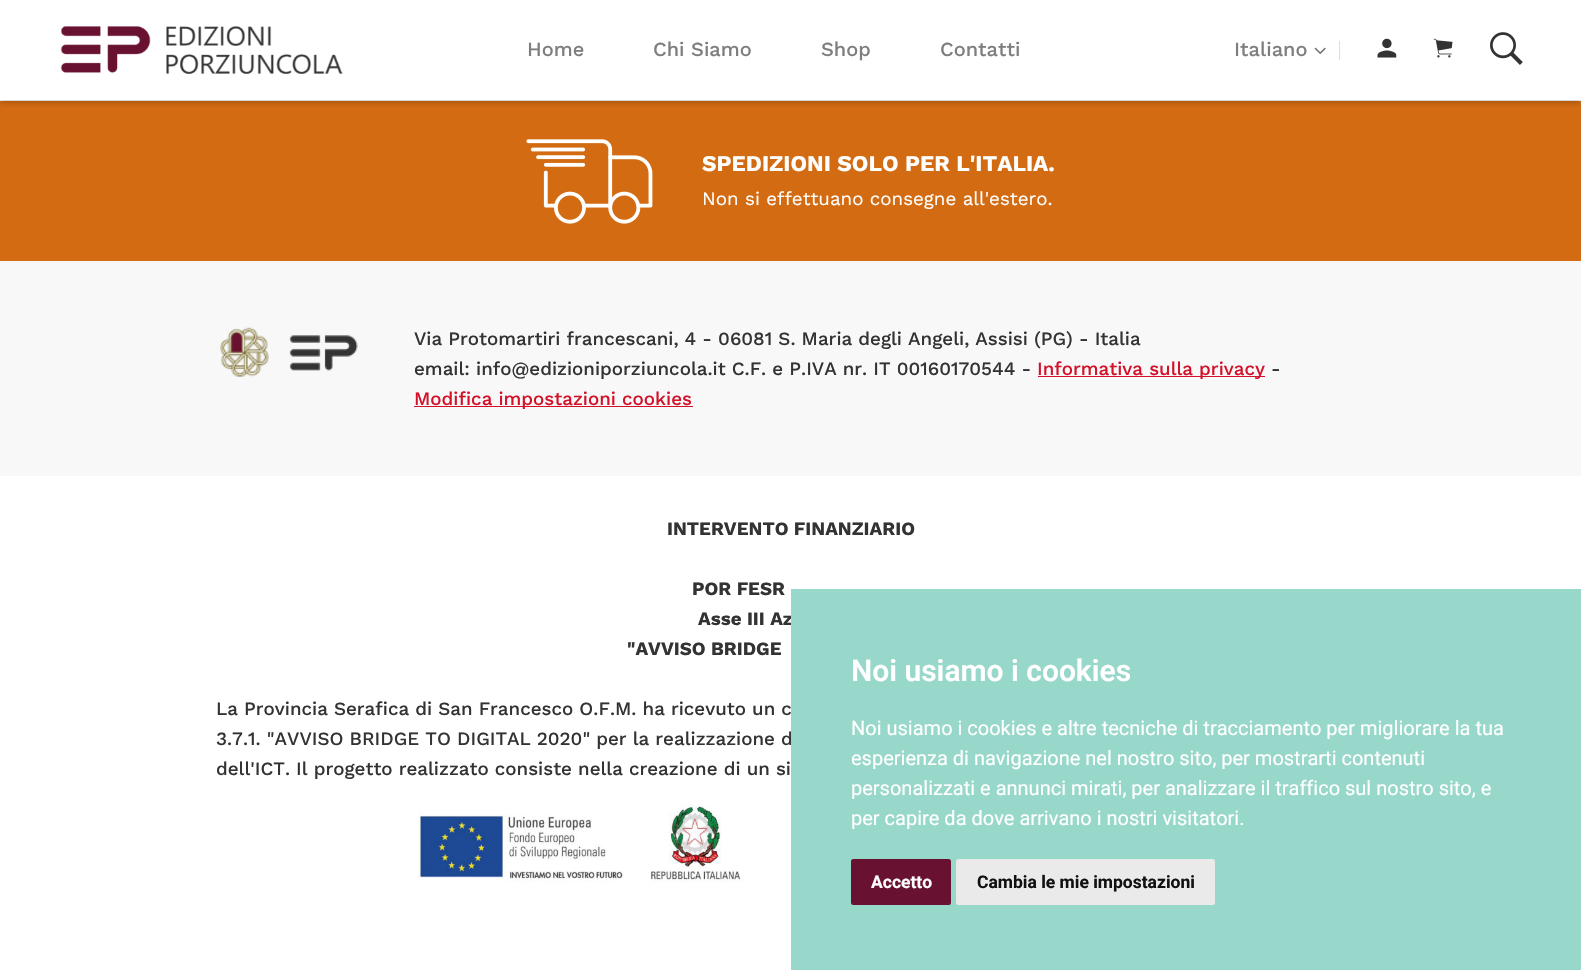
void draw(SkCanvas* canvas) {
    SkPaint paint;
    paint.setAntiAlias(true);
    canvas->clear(0xFFFFFFFF);
    paint.setColor(0xFFD36B12);
    canvas->drawRect(SkRect::MakeXYWH(0, 101, 1581, 160), paint);
    canvas->save();
    canvas->clipRect(SkRect::MakeXYWH(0, 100, 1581, 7));
    paint.setColor(0x33000000);
    paint.setMaskFilter(SkMaskFilter::MakeBlur(kNormal_SkBlurStyle, 3));
    canvas->drawRect(SkRect::MakeXYWH(0, 3, 1581, 100), paint);
    paint.setMaskFilter(nullptr);
    canvas->restore();
    canvas->drawImageRect(SkImages::DeferredFromEncodedData(SkData::MakeFromFileName("img1.png")), SkRect::MakeXYWH(60, 26, 283, 48), SkSamplingOptions());
    SkFont font1(fontMgr->matchFamilyStyle("Work Sans", SkFontStyle(500, SkFontStyle::kNormal_Width, SkFontStyle::kUpright_Slant)), 20);
    font1.setSubpixel(true);
    paint.setColor(0xFF7E7E7E);
    canvas->drawString("Home", 527, 56, font1, paint);
    canvas->drawString("Chi Siamo", 653, 56, font1, paint);
    canvas->drawString("Shop", 821, 56, font1, paint);
    canvas->drawString("Contatti", 940, 56, font1, paint);
    canvas->drawString("Italiano", 1234, 56, font1, paint);
    canvas->drawImageRect(SkImages::DeferredFromEncodedData(SkData::MakeFromFileName("img2.png")), SkRect::MakeXYWH(1314, 47, 12, 8), SkSamplingOptions());
    paint.setColor(0xFFDEDEDE);
    canvas->drawRect(SkRect::MakeXYWH(1339, 41, 1, 19), paint);
    canvas->drawImageRect(SkImages::DeferredFromEncodedData(SkData::MakeFromFileName("img3.png")), SkRect::MakeXYWH(1377, 38, 20, 20), SkSamplingOptions());
    canvas->drawImageRect(SkImages::DeferredFromEncodedData(SkData::MakeFromFileName("img4.png")), SkRect::MakeXYWH(1433, 38, 20, 20), SkSamplingOptions());
    canvas->drawImageRect(SkImages::DeferredFromEncodedData(SkData::MakeFromFileName("img5.png")), SkRect::MakeXYWH(1490, 32, 33, 33), SkSamplingOptions());
    canvas->drawImageRect(SkImages::DeferredFromEncodedData(SkData::MakeFromFileName("img6.png")), SkRect::MakeXYWH(526, 139, 127, 85), SkSamplingOptions());
    SkFont font2(fontMgr->matchFamilyStyle("Work Sans", SkFontStyle::Bold()), 22.5f);
    font2.setSubpixel(true);
    paint.setColor(0xFFFFFFFF);
    canvas->drawString("SPEDIZIONI SOLO PER L'ITALIA.", 702, 171, font2, paint);
    SkFont font3(fontMgr->matchFamilyStyle("Work Sans", SkFontStyle::Normal()), 18.75f);
    font3.setSubpixel(true);
    canvas->drawString("Non si effettuano consegne all'estero.", 702, 205, font3, paint);
    paint.setColor(0xFFF8F8F8);
    canvas->drawRect(SkRect::MakeXYWH(0, 261, 1581, 215), paint);
    canvas->drawImageRect(SkImages::DeferredFromEncodedData(SkData::MakeFromFileName("img7.png")), SkRect::MakeXYWH(220, 327, 138, 50), SkSamplingOptions());
    SkFont font4(fontMgr->matchFamilyStyle("Work Sans", SkFontStyle(500, SkFontStyle::kNormal_Width, SkFontStyle::kUpright_Slant)), 18.75f);
    font4.setSubpixel(true);
    paint.setColor(0xFF333333);
    canvas->drawString("Via Protomartiri francescani, 4 - 06081 S. Maria degli Angeli, Assisi (PG) - Italia", 414, 345, font4, paint);
    canvas->drawString("email: info@edizioniporziuncola.it C.F. e P.IVA nr. IT 00160170544 -", 414, 375, font4, paint);
    paint.setColor(0xFFD3122A);
    canvas->drawRect(SkRect::MakeXYWH(1038, 376, 227, 1), paint);
    canvas->drawString("Informativa sulla privacy", 1037, 375, font4, paint);
    paint.setColor(0xFF333333);
    canvas->drawString("-", 1271, 375, font4, paint);
    paint.setColor(0xFFD3122A);
    canvas->drawRect(SkRect::MakeXYWH(414, 406, 279, 1), paint);
    canvas->drawString("Modifica impostazioni cookies", 414, 405, font4, paint);
    SkFont font5(fontMgr->matchFamilyStyle("Work Sans", SkFontStyle::Bold()), 18.75f);
    font5.setSubpixel(true);
    paint.setColor(0xFF333333);
    canvas->drawString("INTERVENTO FINANZIARIO", 667, 535, font5, paint);
    canvas->drawString("POR FESR", 692, 595, font5, paint);
    canvas->drawString("Asse III Az", 698, 625, font5, paint);
    canvas->drawString("\"AVVISO BRIDGE", 627, 655, font5, paint);
    canvas->drawString("La Provincia Serafica di San Francesco O.F.M. ha ricevuto un c", 216, 715, font4, paint);
    canvas->drawString("3.7.1. \"AVVISO BRIDGE TO DIGITAL 2020\" per la realizzazione d", 216, 745, font4, paint);
    canvas->drawString("dell'ICT. Il progetto realizzato consiste nella creazione di un si", 216, 775, font4, paint);
    canvas->drawImageRect(SkImages::DeferredFromEncodedData(SkData::MakeFromFileName("img8.png")), SkRect::MakeXYWH(418, 804, 373, 102), SkSamplingOptions());
    paint.setColor(0xFF98D8CA);
    canvas->drawRect(SkRect::MakeXYWH(791, 589, 790, 381), paint);
    SkFont font6(fontMgr->matchFamilyStyle("Roboto", SkFontStyle(600, SkFontStyle::kNormal_Width, SkFontStyle::kUpright_Slant)), 30);
    font6.setSubpixel(true);
    paint.setColor(0xFFFFFFFF);
    canvas->drawString("Noi usiamo i cookies", 851, 681, font6, paint);
    SkFont font7(fontMgr->matchFamilyStyle("Roboto", SkFontStyle::Normal()), 20);
    font7.setSubpixel(true);
    canvas->drawString("Noi usiamo i cookies e altre tecniche di tracciamento per migliorare la tua", 851, 735, font7, paint);
    canvas->drawString("esperienza di navigazione nel nostro sito, per mostrarti contenuti", 851, 765, font7, paint);
    canvas->drawString("personalizzati e annunci mirati, per analizzare il traffico sul nostro sito, e", 851, 795, font7, paint);
    canvas->drawString("per capire da dove arrivano i nostri visitatori.", 851, 825, font7, paint);
    paint.setColor(0xFF681131);
    canvas->drawRoundRect(SkRect::MakeXYWH(851, 859, 100, 46), 2.5f, 2.5f, paint);
    SkFont font8(fontMgr->matchFamilyStyle("Roboto", SkFontStyle::Bold()), 17.5f);
    font8.setSubpixel(true);
    paint.setColor(0xFFFFFFFF);
    canvas->drawString("Accetto", 871, 888, font8, paint);
    paint.setColor(0xFFEAEAEA);
    canvas->drawRoundRect(SkRect::MakeXYWH(956, 859, 259, 46), 2.5f, 2.5f, paint);
    paint.setColor(0xFF111111);
    canvas->drawString("Cambia le mie impostazioni", 977, 888, font8, paint);
}
